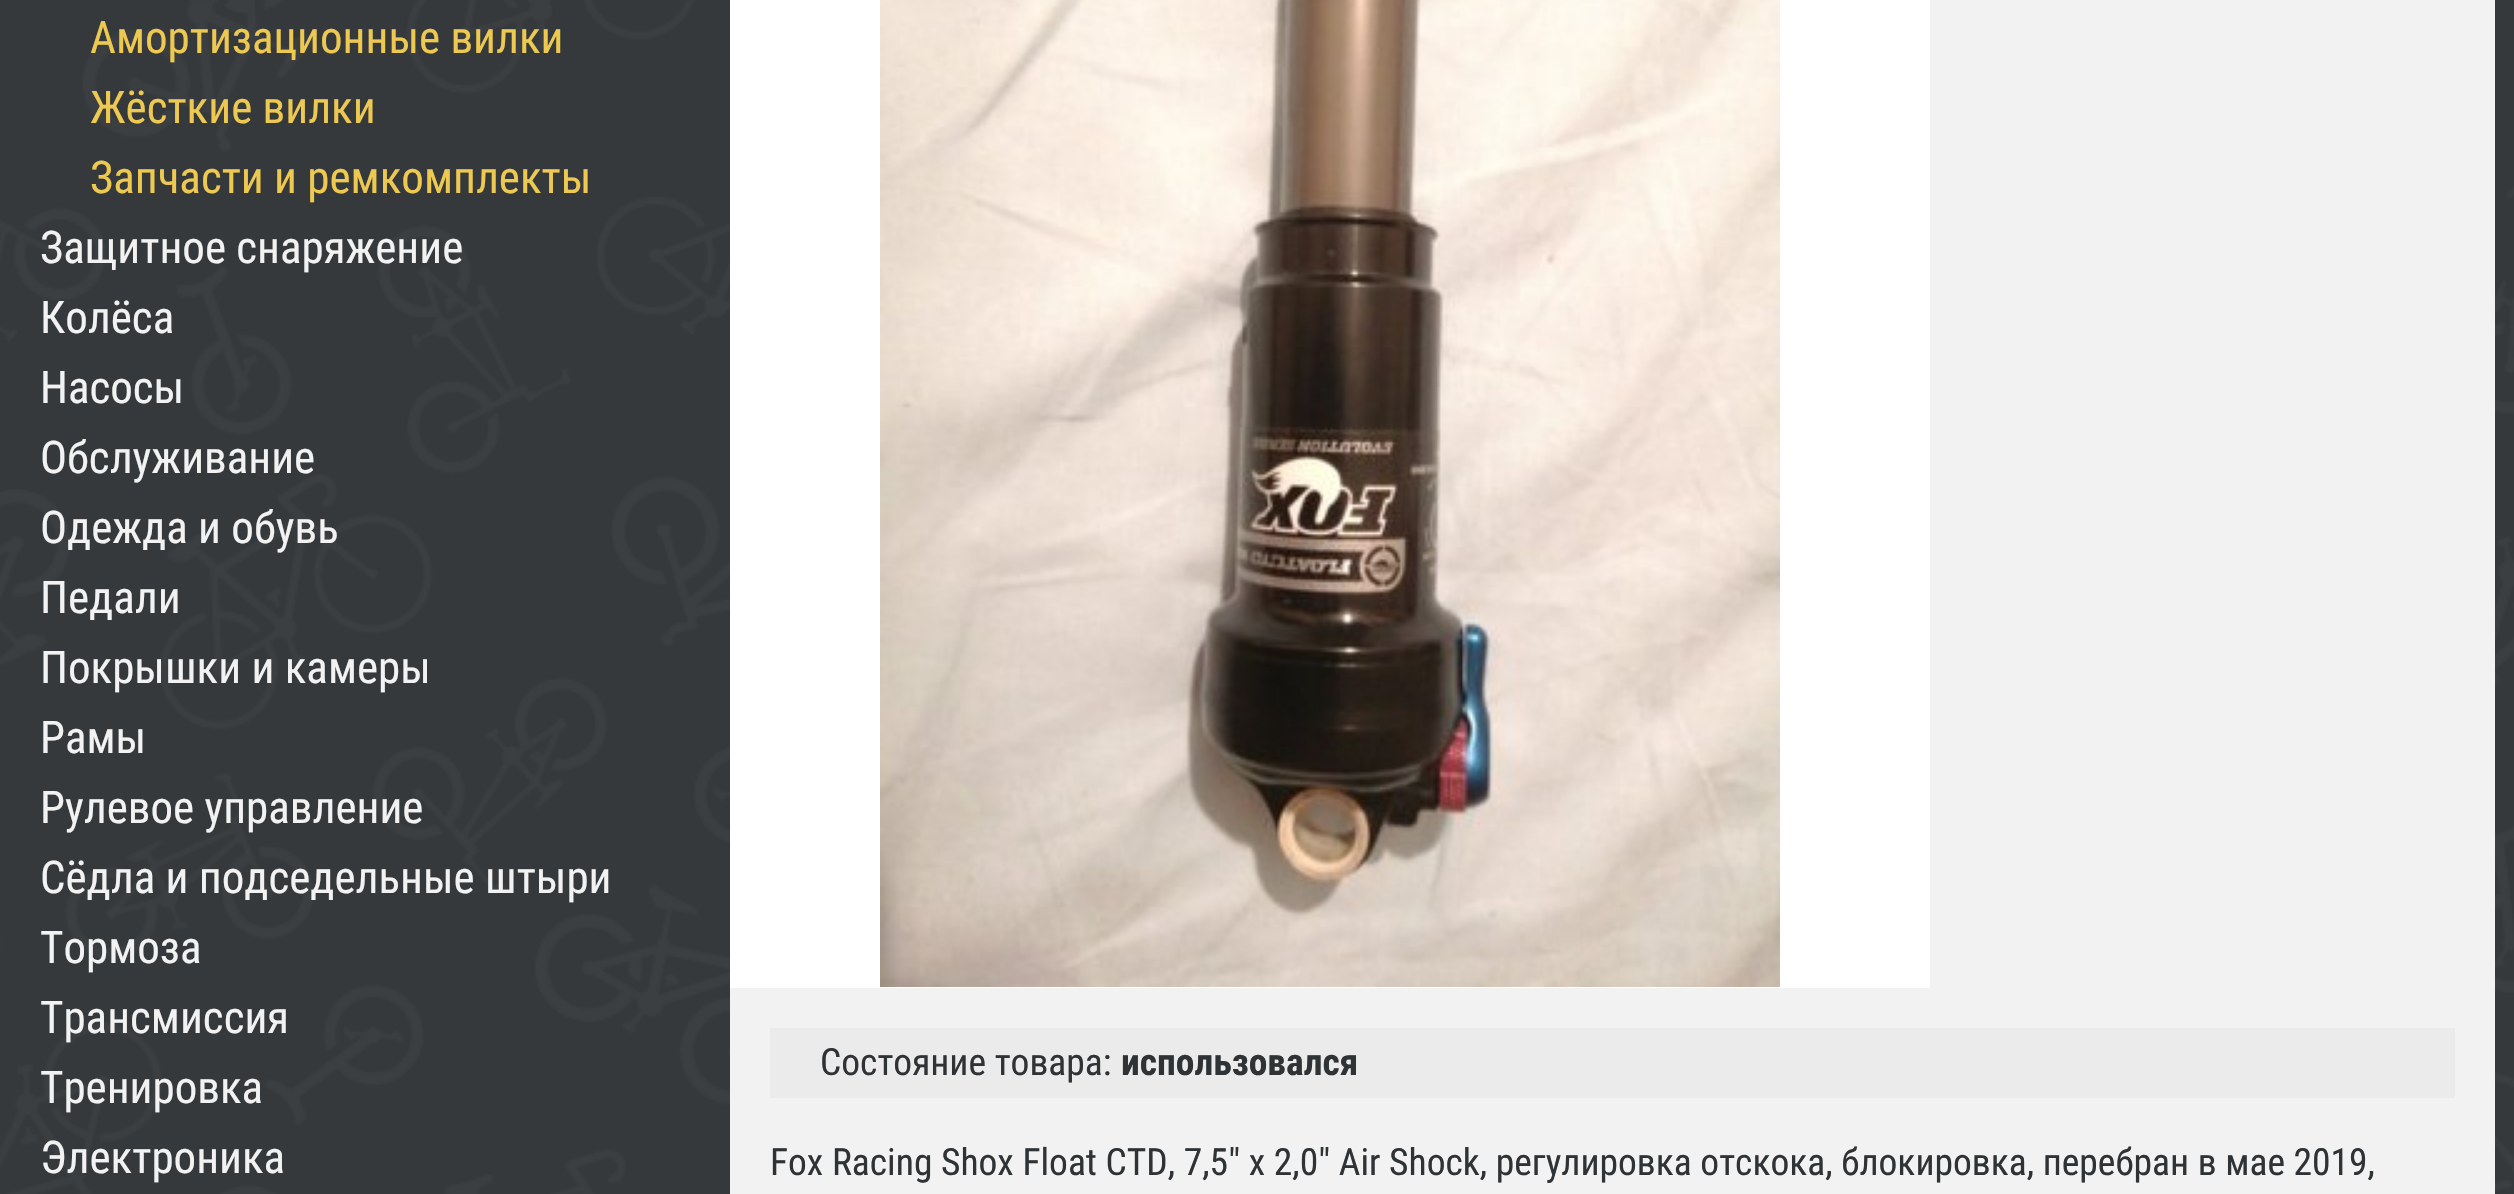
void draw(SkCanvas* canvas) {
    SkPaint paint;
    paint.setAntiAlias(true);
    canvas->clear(0xFFFFFFFF);
    canvas->drawImageRect(SkImages::DeferredFromEncodedData(SkData::MakeFromFileName("img1.png")), SkRect::MakeXYWH(0, 0, 2514, 1194), SkSamplingOptions());
    SkFont font1(fontMgr->matchFamilyStyle("Roboto Condensed", SkFontStyle::Normal()), 45);
    font1.setSubpixel(true);
    paint.setColor(0xFFEDC951);
    canvas->drawString("Амортизационные вилки", 90, 53, font1, paint);
    canvas->drawString("Жёсткие вилки", 90, 123, font1, paint);
    canvas->drawString("Запчасти и ремкомплекты", 90, 193, font1, paint);
    paint.setColor(0xFFF2F2F2);
    canvas->drawString("Защитное снаряжение", 40, 263, font1, paint);
    canvas->drawString("Колёса", 40, 333, font1, paint);
    canvas->drawString("Насосы", 40, 403, font1, paint);
    canvas->drawString("Обслуживание", 40, 473, font1, paint);
    canvas->drawString("Одежда и обувь", 40, 543, font1, paint);
    canvas->drawString("Педали", 40, 613, font1, paint);
    canvas->drawString("Покрышки и камеры", 40, 683, font1, paint);
    canvas->drawString("Рамы", 40, 753, font1, paint);
    canvas->drawString("Рулевое управление", 40, 823, font1, paint);
    canvas->drawString("Сёдла и подседельные штыри", 40, 893, font1, paint);
    canvas->drawString("Тормоза", 40, 963, font1, paint);
    canvas->drawString("Трансмиссия", 40, 1033, font1, paint);
    canvas->drawString("Тренировка", 40, 1103, font1, paint);
    canvas->drawString("Электроника", 40, 1173, font1, paint);
    canvas->drawRect(SkRect::MakeXYWH(730, 0, 1765, 1194), paint);
    paint.setColor(0xFFFFFFFF);
    canvas->drawRect(SkRect::MakeXYWH(730, 0, 1200, 988), paint);
    canvas->drawImageRect(SkImages::DeferredFromEncodedData(SkData::MakeFromFileName("img2.png")), SkRect::MakeXYWH(880, 0, 900, 987), SkSamplingOptions());
    paint.setColor(0xFFEBEBEB);
    canvas->drawRect(SkRect::MakeXYWH(770, 1028, 1685, 70), paint);
    SkFont font2(fontMgr->matchFamilyStyle("Roboto Condensed", SkFontStyle::Normal()), 37.5f);
    font2.setSubpixel(true);
    paint.setColor(0xFF2F3335);
    canvas->drawString("Состояние товара:", 820, 1075, font2, paint);
    SkFont font3(fontMgr->matchFamilyStyle("Roboto Condensed", SkFontStyle::Bold()), 37.5f);
    font3.setSubpixel(true);
    canvas->drawString("использовался", 1121, 1075, font3, paint);
    canvas->drawString("Fox Racing Shox Float CTD, 7,5\" x 2,0\" Air Shock, регулировка отскока, блокировка, перебран в мае 2019,", 770, 1175, font2, paint);
}
